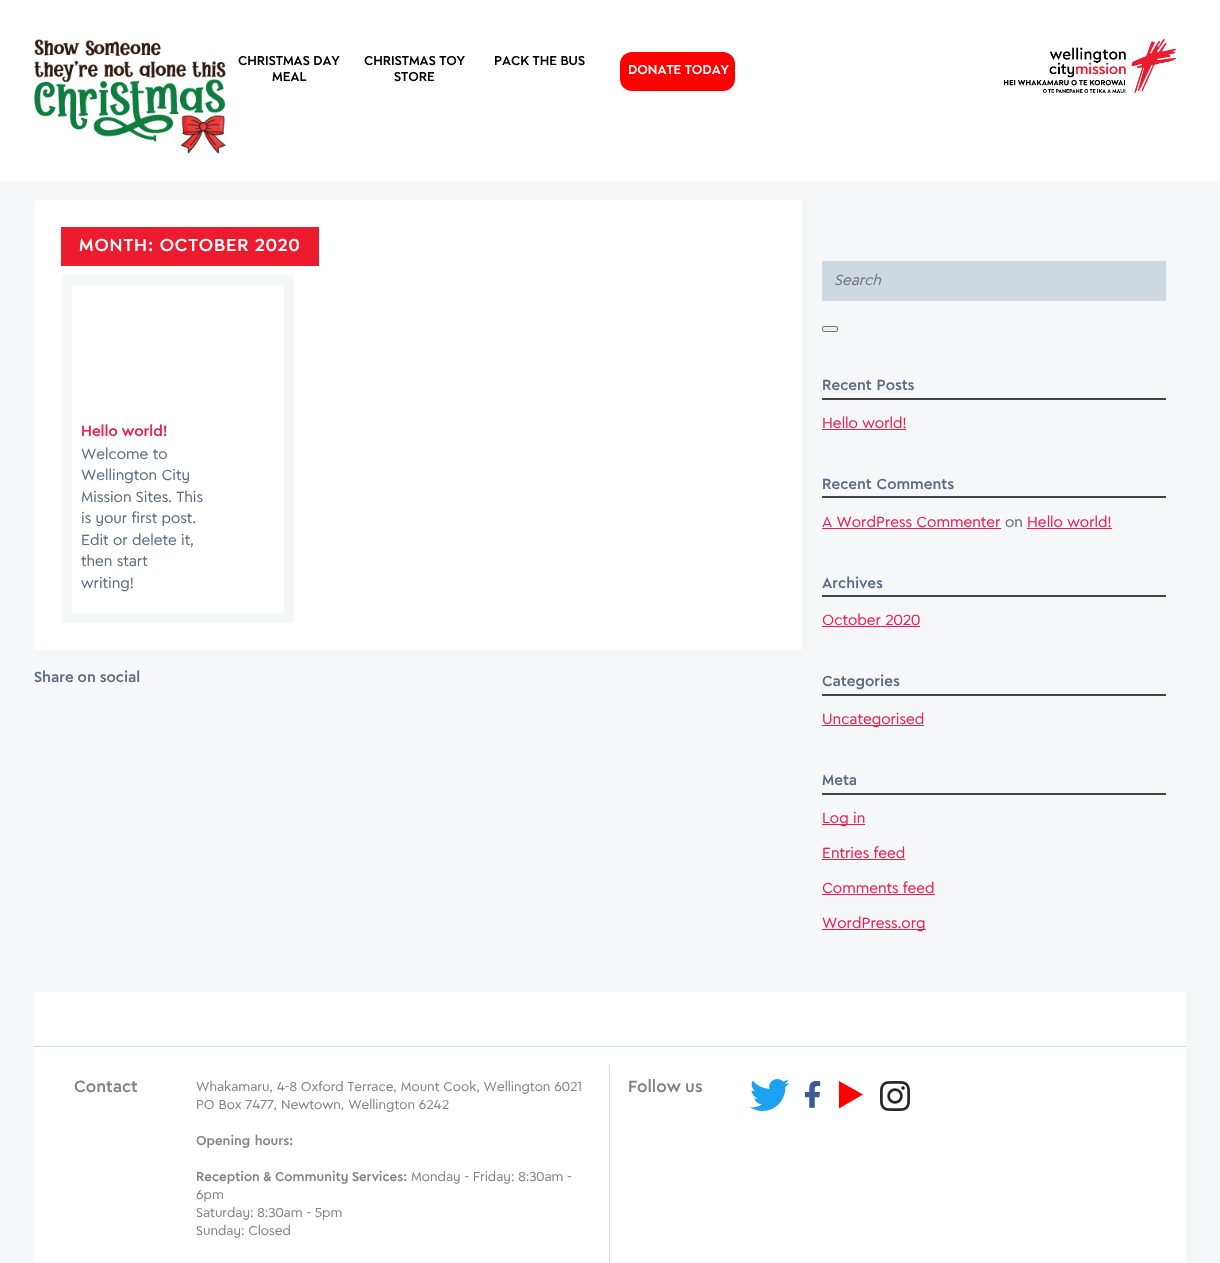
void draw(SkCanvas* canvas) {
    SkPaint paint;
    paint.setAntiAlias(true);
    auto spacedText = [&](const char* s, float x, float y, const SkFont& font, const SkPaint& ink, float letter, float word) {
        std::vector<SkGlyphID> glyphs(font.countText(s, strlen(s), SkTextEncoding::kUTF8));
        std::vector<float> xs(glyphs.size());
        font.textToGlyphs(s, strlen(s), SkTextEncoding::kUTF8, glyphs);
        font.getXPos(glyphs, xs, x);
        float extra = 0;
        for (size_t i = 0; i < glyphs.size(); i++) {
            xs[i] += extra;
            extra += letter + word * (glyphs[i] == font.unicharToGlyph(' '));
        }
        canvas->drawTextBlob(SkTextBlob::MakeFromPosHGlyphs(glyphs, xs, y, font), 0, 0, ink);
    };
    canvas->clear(0xFFF6F7F9);
    paint.setColor(0xFFFFFFFF);
    canvas->drawRect(SkRect::MakeXYWH(0, 0, 1220, 182), paint);
    canvas->drawImageRect(SkImages::DeferredFromEncodedData(SkData::MakeFromFileName("img1.png")), SkRect::MakeXYWH(34, 39, 192, 115), SkSamplingOptions());
    SkFont font1(fontMgr->matchFamilyStyle("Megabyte", SkFontStyle::Normal()), 12.55f);
    font1.setSubpixel(true);
    paint.setColor(0xFF000000);
    canvas->drawString("CHRISTMAS DAY", 238, 65, font1, paint);
    canvas->drawString("MEAL", 272, 81, font1, paint);
    canvas->drawString("CHRISTMAS TOY", 364, 65, font1, paint);
    canvas->drawString("STORE", 394, 81, font1, paint);
    canvas->drawString("PACK THE BUS", 494, 65, font1, paint);
    paint.setColor(0xFFFF0000);
    canvas->drawRoundRect(SkRect::MakeXYWH(620, 52, 115, 39), 12, 12, paint);
    paint.setColor(0xFFFFFFFF);
    canvas->drawString("DONATE TODAY", 628, 74, font1, paint);
    canvas->drawImageRect(SkImages::DeferredFromEncodedData(SkData::MakeFromFileName("img2.png")), SkRect::MakeXYWH(1004, 39, 172, 54), SkSamplingOptions());
    canvas->drawRect(SkRect::MakeXYWH(34, 200, 768, 450), paint);
    paint.setColor(0xFFED1B2E);
    canvas->drawRect(SkRect::MakeXYWH(61, 227, 258, 39), paint);
    SkFont font2(fontMgr->matchFamilyStyle("Megabyte", SkFontStyle::Normal()), 17);
    font2.setSubpixel(true);
    paint.setColor(0xFFFFFFFF);
    spacedText("MONTH: OCTOBER 2020", 79, 251, font2, paint, 0.9f, 0);
    paint.setStyle(SkPaint::kStroke_Style);
    paint.setStrokeWidth(10);
    paint.setColor(0xFFF6F7F9);
    canvas->drawRect(SkRect::MakeXYWH(67, 280, 222, 338), paint);
    SkFont font3(fontMgr->matchFamilyStyle("Megabyte", SkFontStyle::Normal()), 14.3f);
    font3.setSubpixel(true);
    paint.setStyle(SkPaint::kFill_Style);
    paint.setColor(0xFFF01D4F);
    canvas->drawString("Hello world!", 81, 436, font3, paint);
    SkFont font4(fontMgr->matchFamilyStyle("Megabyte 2", SkFontStyle::Normal()), 14.3f);
    font4.setSubpixel(true);
    paint.setColor(0xFF5C6B80);
    canvas->drawString("Welcome to", 81, 459, font4, paint);
    canvas->drawString("Wellington City", 81, 480, font4, paint);
    canvas->drawString("Mission Sites. This", 81, 502, font4, paint);
    canvas->drawString("is your first post.", 81, 523, font4, paint);
    canvas->drawString("Edit or delete it,", 81, 545, font4, paint);
    canvas->drawString("then start", 81, 566, font4, paint);
    canvas->drawString("writing!", 81, 588, font4, paint);
    canvas->drawString("Share on social", 34, 682, font3, paint);
    paint.setColor(0xFFCED8E1);
    canvas->drawRect(SkRect::MakeXYWH(822, 261, 344, 40), paint);
    SkFont font5(fontMgr->matchFamilyStyle("Megabyte", SkFontStyle::Italic()), 14.3f);
    font5.setSubpixel(true);
    paint.setColor(0xFF757575);
    canvas->drawString("Search", 834, 285, font5, paint);
    paint.setColor(0xFFEFEFEF);
    canvas->drawRoundRect(SkRect::MakeXYWH(822.5f, 326.5f, 15, 5), 1.5f, 1.5f, paint);
    paint.setStyle(SkPaint::kStroke_Style);
    paint.setStrokeWidth(1);
    paint.setColor(0xFF767676);
    canvas->drawRoundRect(SkRect::MakeXYWH(822.5f, 326.5f, 15, 5), 1.5f, 1.5f, paint);
    paint.setStyle(SkPaint::kFill_Style);
    paint.setColor(0xFF444444);
    canvas->drawRect(SkRect::MakeXYWH(822, 398, 344, 2), paint);
    paint.setColor(0xFF5C6B80);
    spacedText("Recent Posts", 822, 390, font3, paint, 0, 1);
    paint.setColor(0xFFF01D4F);
    canvas->drawString("Hello world!", 822, 428, font4, paint);
    canvas->drawRect(SkRect::MakeXYWH(822, 429, 84, 1), paint);
    paint.setColor(0xFF444444);
    canvas->drawRect(SkRect::MakeXYWH(822, 496, 344, 2), paint);
    paint.setColor(0xFF5C6B80);
    spacedText("Recent Comments", 822, 489, font3, paint, 0, 1);
    paint.setColor(0xFFF01D4F);
    canvas->drawString("A WordPress Commenter", 822, 527, font4, paint);
    canvas->drawRect(SkRect::MakeXYWH(822, 528, 179, 1), paint);
    paint.setColor(0xFF5C6B80);
    canvas->drawString("on", 1005, 527, font4, paint);
    paint.setColor(0xFFF01D4F);
    canvas->drawString("Hello world!", 1027, 527, font4, paint);
    canvas->drawRect(SkRect::MakeXYWH(1027, 528, 85, 1), paint);
    paint.setColor(0xFF444444);
    canvas->drawRect(SkRect::MakeXYWH(822, 595, 344, 2), paint);
    paint.setColor(0xFF5C6B80);
    canvas->drawString("Archives", 822, 588, font3, paint);
    paint.setColor(0xFFF01D4F);
    canvas->drawString("October 2020", 822, 625, font4, paint);
    canvas->drawRect(SkRect::MakeXYWH(822, 626, 98, 1), paint);
    paint.setColor(0xFF444444);
    canvas->drawRect(SkRect::MakeXYWH(822, 694, 344, 2), paint);
    paint.setColor(0xFF5C6B80);
    canvas->drawString("Categories", 822, 686, font3, paint);
    paint.setColor(0xFFF01D4F);
    canvas->drawRect(SkRect::MakeXYWH(822, 725, 102, 1), paint);
    canvas->drawString("Uncategorised", 822, 724, font4, paint);
    paint.setColor(0xFF444444);
    canvas->drawRect(SkRect::MakeXYWH(822, 793, 344, 2), paint);
    paint.setColor(0xFF5C6B80);
    canvas->drawString("Meta", 822, 785, font3, paint);
    paint.setColor(0xFFF01D4F);
    canvas->drawRect(SkRect::MakeXYWH(822, 824, 43, 1), paint);
    canvas->drawString("Log in", 822, 823, font4, paint);
    canvas->drawString("Entries feed", 822, 858, font4, paint);
    canvas->drawRect(SkRect::MakeXYWH(822, 859, 83, 1), paint);
    canvas->drawString("Comments feed", 822, 893, font4, paint);
    canvas->drawRect(SkRect::MakeXYWH(822, 894, 113, 1), paint);
    canvas->drawRect(SkRect::MakeXYWH(822, 929, 104, 1), paint);
    canvas->drawString("WordPress.org", 822, 928, font4, paint);
    paint.setColor(0xFFFFFFFF);
    canvas->drawRect(SkRect::MakeXYWH(34, 992, 1152, 271), paint);
    paint.setColor(0xFFCED8E1);
    canvas->drawRect(SkRect::MakeXYWH(34, 1046, 1152, 1), paint);
    canvas->drawRect(SkRect::MakeXYWH(609, 1065, 1, 198), paint);
    SkFont font6(fontMgr->matchFamilyStyle("Megabyte", SkFontStyle::Normal()), 16);
    font6.setSubpixel(true);
    paint.setColor(0xFF808285);
    canvas->drawString("Contact", 74, 1092, font6, paint);
    SkFont font7(fontMgr->matchFamilyStyle("Megabyte 2", SkFontStyle::Normal()), 12.55f);
    font7.setSubpixel(true);
    canvas->drawString("Whakamaru, 4-8 Oxford Terrace, Mount Cook, Wellington 6021", 196, 1091, font7, paint);
    canvas->drawString("PO Box 7477, Newtown, Wellington 6242", 196, 1109, font7, paint);
    spacedText("Opening hours:", 196, 1145, font1, paint, 0, 1);
    canvas->drawString("Reception & Community Services:", 196, 1181, font1, paint);
    canvas->drawString("Monday - Friday: 8:30am -", 411, 1181, font7, paint);
    canvas->drawString("6pm", 196, 1199, font7, paint);
    canvas->drawString("Saturday: 8:30am - 5pm", 196, 1217, font7, paint);
    canvas->drawString("Sunday: Closed", 196, 1235, font7, paint);
    canvas->drawString("Follow us", 628, 1092, font6, paint);
    canvas->drawImageRect(SkImages::DeferredFromEncodedData(SkData::MakeFromFileName("img3.png")), SkRect::MakeXYWH(750, 1079, 39, 32), SkSamplingOptions());
    canvas->drawImageRect(SkImages::DeferredFromEncodedData(SkData::MakeFromFileName("img4.png")), SkRect::MakeXYWH(804, 1081, 17, 27), SkSamplingOptions());
    paint.setColor(0xFFFF0000);
    canvas->drawPath(SkPathBuilder(SkPathFillType::kEvenOdd).moveTo(839, 1081).lineTo(839, 1108.5f).lineTo(863, 1094.5f).close().detach(), paint);
    canvas->drawImageRect(SkImages::DeferredFromEncodedData(SkData::MakeFromFileName("img5.png")), SkRect::MakeXYWH(880, 1081, 30, 30), SkSamplingOptions());
}
